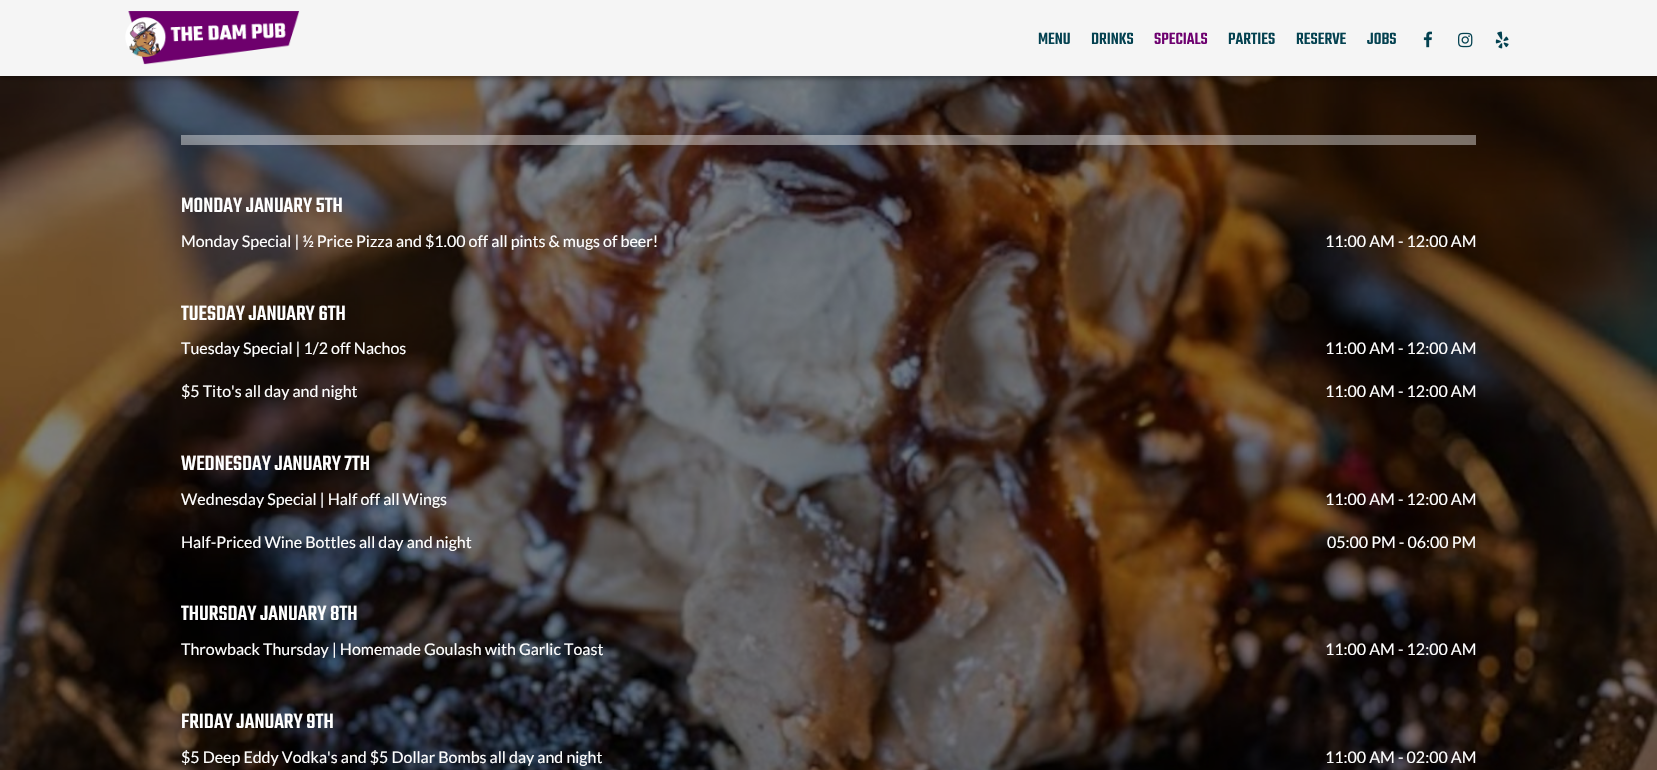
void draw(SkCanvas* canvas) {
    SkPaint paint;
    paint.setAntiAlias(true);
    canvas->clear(0xFFFFFFFF);
    canvas->drawImageRect(SkImages::DeferredFromEncodedData(SkData::MakeFromFileName("img1.png")), SkRect::MakeXYWH(0, 76, 1657, 694), SkSamplingOptions());
    paint.setColor(0x66000000);
    paint.setMaskFilter(SkMaskFilter::MakeBlur(kNormal_SkBlurStyle, 2.5f));
    canvas->drawRect(SkRect::MakeXYWH(0, 2, 1657, 76), paint);
    paint.setMaskFilter(nullptr);
    paint.setColor(0xFFF5F5F5);
    canvas->drawRect(SkRect::MakeXYWH(0, 0, 1657, 76), paint);
    canvas->drawImageRect(SkImages::DeferredFromEncodedData(SkData::MakeFromFileName("img2.png")), SkRect::MakeXYWH(125, 11, 175, 54), SkSamplingOptions());
    SkFont font1(fontMgr->matchFamilyStyle("Teko", SkFontStyle(300, SkFontStyle::kNormal_Width, SkFontStyle::kUpright_Slant)), 18);
    font1.setSubpixel(true);
    paint.setColor(0xFF034150);
    canvas->drawString("MENU", 1038, 44, font1, paint);
    canvas->drawString("DRINKS", 1091, 44, font1, paint);
    paint.setColor(0xFF6D006F);
    canvas->drawString("SPECIALS", 1154, 44, font1, paint);
    paint.setColor(0xFF034150);
    canvas->drawString("PARTIES", 1228, 44, font1, paint);
    canvas->drawString("RESERVE", 1296, 44, font1, paint);
    canvas->drawString("JOBS", 1367, 44, font1, paint);
    canvas->drawImageRect(SkImages::DeferredFromEncodedData(SkData::MakeFromFileName("img3.png")), SkRect::MakeXYWH(1423, 31, 9, 17), SkSamplingOptions());
    canvas->drawImageRect(SkImages::DeferredFromEncodedData(SkData::MakeFromFileName("img4.png")), SkRect::MakeXYWH(1458, 32, 15, 16), SkSamplingOptions());
    canvas->drawImageRect(SkImages::DeferredFromEncodedData(SkData::MakeFromFileName("img5.png")), SkRect::MakeXYWH(1495, 31, 14, 18), SkSamplingOptions());
    paint.setColor(0x66FFFFFF);
    canvas->drawRect(SkRect::MakeXYWH(181, 135, 1295, 10), paint);
    SkFont font2(fontMgr->matchFamilyStyle("Teko", SkFontStyle(300, SkFontStyle::kNormal_Width, SkFontStyle::kUpright_Slant)), 22.5f);
    font2.setSubpixel(true);
    paint.setColor(0xFFFFFFFF);
    canvas->drawString("MONDAY JANUARY 5TH", 181, 212, font2, paint);
    SkFont font3(fontMgr->matchFamilyStyle("Lato", SkFontStyle::Normal()), 16);
    font3.setSubpixel(true);
    canvas->drawString("Monday Special | ½ Price Pizza and $1.00 off all pints & mugs of beer!", 181, 247, font3, paint);
    canvas->drawString("11:00 AM - 12:00 AM", 1325, 247, font3, paint);
    canvas->drawString("TUESDAY JANUARY 6TH", 181, 320, font2, paint);
    canvas->drawString("Tuesday Special | 1/2 off Nachos", 181, 354, font3, paint);
    canvas->drawString("11:00 AM - 12:00 AM", 1325, 354, font3, paint);
    canvas->drawString("$5 Tito's all day and night", 181, 397, font3, paint);
    canvas->drawString("11:00 AM - 12:00 AM", 1325, 397, font3, paint);
    canvas->drawString("WEDNESDAY JANUARY 7TH", 181, 470, font2, paint);
    canvas->drawString("Wednesday Special | Half off all Wings", 181, 505, font3, paint);
    canvas->drawString("11:00 AM - 12:00 AM", 1325, 505, font3, paint);
    canvas->drawString("Half-Priced Wine Bottles all day and night", 181, 548, font3, paint);
    canvas->drawString("05:00 PM - 06:00 PM", 1327, 548, font3, paint);
    canvas->drawString("THURSDAY JANUARY 8TH", 181, 620, font2, paint);
    canvas->drawString("Throwback Thursday | Homemade Goulash with Garlic Toast", 181, 655, font3, paint);
    canvas->drawString("11:00 AM - 12:00 AM", 1325, 655, font3, paint);
    canvas->drawString("FRIDAY JANUARY 9TH", 181, 728, font2, paint);
    canvas->drawString("$5 Deep Eddy Vodka's and $5 Dollar Bombs all day and night", 181, 763, font3, paint);
    canvas->drawString("11:00 AM - 02:00 AM", 1325, 763, font3, paint);
}
